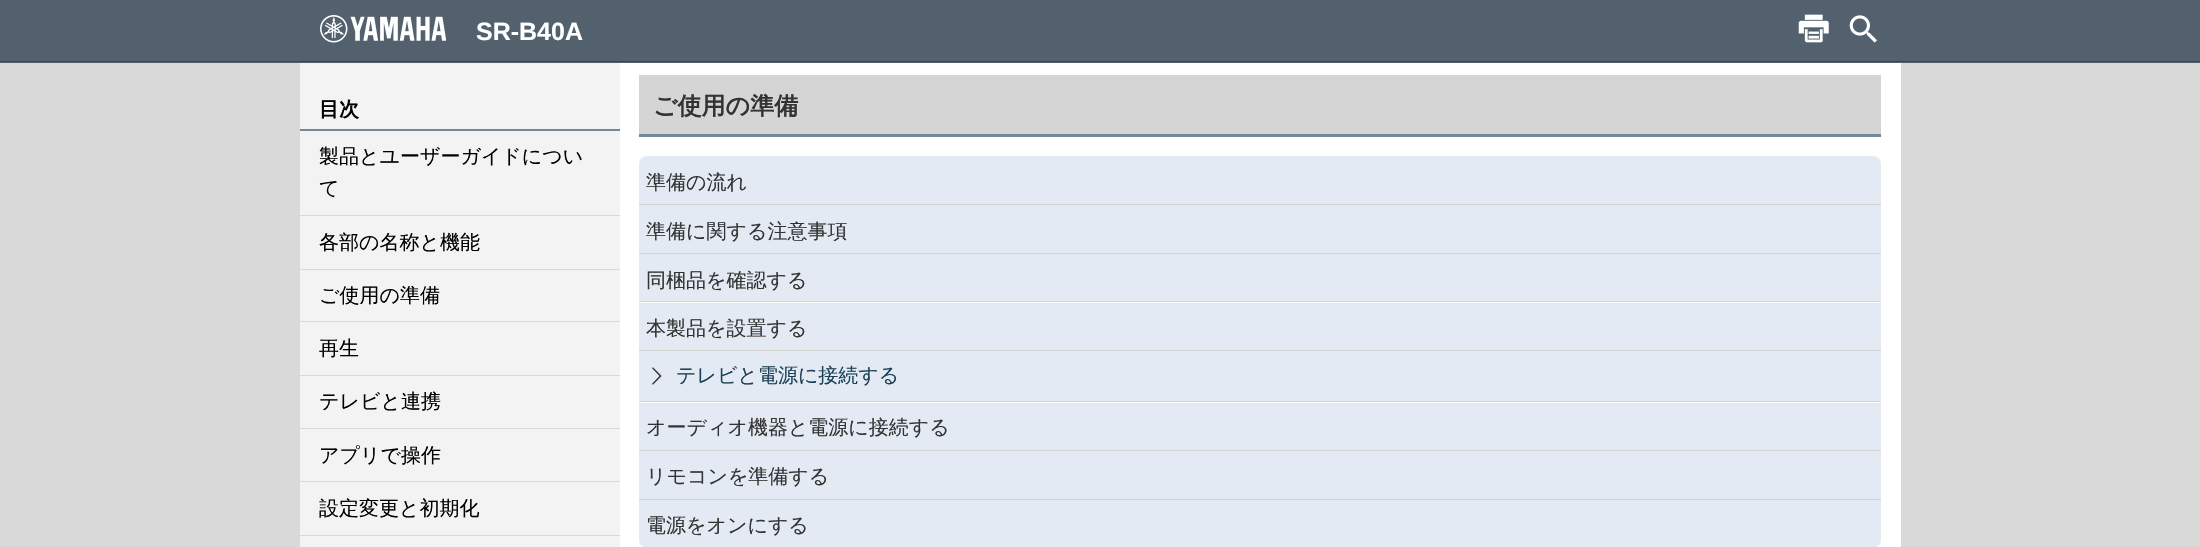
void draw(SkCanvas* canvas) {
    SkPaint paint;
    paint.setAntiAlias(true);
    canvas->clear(0xFFD9D9D9);
    paint.setColor(0xFFF3F3F4);
    canvas->drawRect(SkRect::MakeXYWH(300, 63, 320, 484), paint);
    paint.setColor(0xFF75879B);
    canvas->drawRect(SkRect::MakeXYWH(300, 129, 320, 2), paint);
    SkFont font1(fontMgr->matchFamilyStyle("WenQuanYi Zen Hei", SkFontStyle::Bold()), 20);
    font1.setSubpixel(true);
    paint.setColor(0xFF000000);
    canvas->drawString("目次", 319, 116, font1, paint);
    paint.setColor(0xFFD9D9D9);
    canvas->drawRect(SkRect::MakeXYWH(300, 215, 320, 1), paint);
    SkFont font2(fontMgr->matchFamilyStyle("WenQuanYi Zen Hei", SkFontStyle(500, SkFontStyle::kNormal_Width, SkFontStyle::kUpright_Slant)), 20);
    font2.setSubpixel(true);
    paint.setColor(0xFF000000);
    canvas->drawString("製品とユーザーガイドについ", 319, 163, font2, paint);
    canvas->drawString("て", 319, 195, font2, paint);
    paint.setColor(0xFFD9D9D9);
    canvas->drawRect(SkRect::MakeXYWH(300, 269, 320, 1), paint);
    paint.setColor(0xFF000000);
    canvas->drawString("各部の名称と機能", 319, 249, font2, paint);
    paint.setColor(0xFFD9D9D9);
    canvas->drawRect(SkRect::MakeXYWH(300, 321, 320, 1), paint);
    paint.setColor(0xFF000000);
    canvas->drawString("ご使用の準備", 319, 302, font2, paint);
    paint.setColor(0xFFD9D9D9);
    canvas->drawRect(SkRect::MakeXYWH(300, 375, 320, 1), paint);
    paint.setColor(0xFF000000);
    canvas->drawString("再生", 319, 355, font2, paint);
    paint.setColor(0xFFD9D9D9);
    canvas->drawRect(SkRect::MakeXYWH(300, 428, 320, 1), paint);
    paint.setColor(0xFF000000);
    canvas->drawString("テレビと連携", 319, 408, font2, paint);
    paint.setColor(0xFFD9D9D9);
    canvas->drawRect(SkRect::MakeXYWH(300, 481, 320, 1), paint);
    paint.setColor(0xFF000000);
    canvas->drawString("アプリで操作", 319, 462, font2, paint);
    paint.setColor(0xFFD9D9D9);
    canvas->drawRect(SkRect::MakeXYWH(300, 535, 320, 1), paint);
    paint.setColor(0xFF000000);
    canvas->drawString("設定変更と初期化", 319, 515, font2, paint);
    paint.setColor(0xFF53606D);
    canvas->drawRect(SkRect::MakeXYWH(0, 0, 2200, 63), paint);
    paint.setColor(0xFF3A4651);
    canvas->drawRect(SkRect::MakeXYWH(0, 61, 2200, 1), paint);
    canvas->drawImageRect(SkImages::DeferredFromEncodedData(SkData::MakeFromFileName("img1.png")), SkRect::MakeXYWH(320, 15, 126, 28), SkSamplingOptions());
    SkFont font3(fontMgr->matchFamilyStyle("Liberation Sans", SkFontStyle::Bold()), 25);
    font3.setSubpixel(true);
    paint.setColor(0xFFFFFFFF);
    canvas->drawString("SR-B40A", 476, 40, font3, paint);
    canvas->drawImageRect(SkImages::DeferredFromEncodedData(SkData::MakeFromFileName("img2.png")), SkRect::MakeXYWH(1798, 14, 31, 29), SkSamplingOptions());
    canvas->drawImageRect(SkImages::DeferredFromEncodedData(SkData::MakeFromFileName("img3.png")), SkRect::MakeXYWH(1849, 15, 28, 28), SkSamplingOptions());
    canvas->drawRect(SkRect::MakeXYWH(620, 63, 1281, 484), paint);
    paint.setColor(0xFFD5D5D5);
    canvas->drawRect(SkRect::MakeXYWH(639, 75, 1242, 59), paint);
    paint.setColor(0xFF75879B);
    canvas->drawRect(SkRect::MakeXYWH(639, 134, 1242, 3), paint);
    SkFont font4(fontMgr->matchFamilyStyle("WenQuanYi Zen Hei", SkFontStyle::Bold()), 24);
    font4.setSubpixel(true);
    paint.setColor(0xFF333333);
    canvas->drawString("ご使用の準備", 653, 114, font4, paint);
    paint.setColor(0xFFE4EAF3);
    canvas->drawPath(SkPathBuilder().moveTo(647, 156).lineTo(1873, 156).cubicTo(1877.5f, 156, 1881, 159.5f, 1881, 164).lineTo(1881, 204).lineTo(639, 204).lineTo(639, 164).cubicTo(639, 159.5f, 642.5f, 156, 647, 156).close().detach(), paint);
    paint.setColor(0xFF333333);
    canvas->drawString("準備の流れ", 646, 189, font2, paint);
    paint.setColor(0xFFD5D5D5);
    canvas->drawRect(SkRect::MakeXYWH(639, 204, 1242, 1), paint);
    paint.setColor(0xFFE4EAF3);
    canvas->drawRect(SkRect::MakeXYWH(639, 205, 1242, 48), paint);
    paint.setColor(0xFF333333);
    canvas->drawString("準備に関する注意事項", 646, 238, font2, paint);
    paint.setColor(0xFFD5D5D5);
    canvas->drawRect(SkRect::MakeXYWH(639, 253, 1242, 1), paint);
    paint.setColor(0xFFE4EAF3);
    canvas->drawRect(SkRect::MakeXYWH(639, 254, 1242, 47), paint);
    paint.setColor(0xFF333333);
    canvas->drawString("同梱品を確認する", 646, 287, font2, paint);
    paint.setColor(0xFFD5D5D5);
    canvas->drawRect(SkRect::MakeXYWH(639, 301, 1242, 1), paint);
    paint.setColor(0xFFE4EAF3);
    canvas->drawRect(SkRect::MakeXYWH(639, 303, 1242, 47), paint);
    paint.setColor(0xFF333333);
    canvas->drawString("本製品を設置する", 646, 335, font2, paint);
    paint.setColor(0xFFD5D5D5);
    canvas->drawRect(SkRect::MakeXYWH(639, 350, 1242, 1), paint);
    paint.setColor(0xFFE4EAF3);
    canvas->drawRect(SkRect::MakeXYWH(639, 351, 1242, 50), paint);
    canvas->drawImageRect(SkImages::DeferredFromEncodedData(SkData::MakeFromFileName("img4.png")), SkRect::MakeXYWH(652, 367, 10, 18), SkSamplingOptions());
    paint.setColor(0xFF1C4257);
    canvas->drawString("テレビと電源に接続する", 676, 382, font2, paint);
    paint.setColor(0xFFD5D5D5);
    canvas->drawRect(SkRect::MakeXYWH(639, 401, 1242, 1), paint);
    paint.setColor(0xFFE4EAF3);
    canvas->drawRect(SkRect::MakeXYWH(639, 403, 1242, 47), paint);
    paint.setColor(0xFF333333);
    canvas->drawString("オーディオ機器と電源に接続する", 646, 434, font2, paint);
    paint.setColor(0xFFD5D5D5);
    canvas->drawRect(SkRect::MakeXYWH(639, 450, 1242, 1), paint);
    paint.setColor(0xFFE4EAF3);
    canvas->drawRect(SkRect::MakeXYWH(639, 451, 1242, 48), paint);
    paint.setColor(0xFF333333);
    canvas->drawString("リモコンを準備する", 646, 483, font2, paint);
    paint.setColor(0xFFD5D5D5);
    canvas->drawRect(SkRect::MakeXYWH(639, 499, 1242, 1), paint);
    paint.setColor(0xFFE4EAF3);
    canvas->drawPath(SkPathBuilder().moveTo(639, 500).lineTo(1881, 500).lineTo(1881, 540).cubicTo(1881, 544.5f, 1877.5f, 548, 1873, 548).lineTo(647, 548).cubicTo(642.5f, 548, 639, 544.5f, 639, 540).close().detach(), paint);
    paint.setColor(0xFF333333);
    canvas->drawString("電源をオンにする", 646, 532, font2, paint);
}
